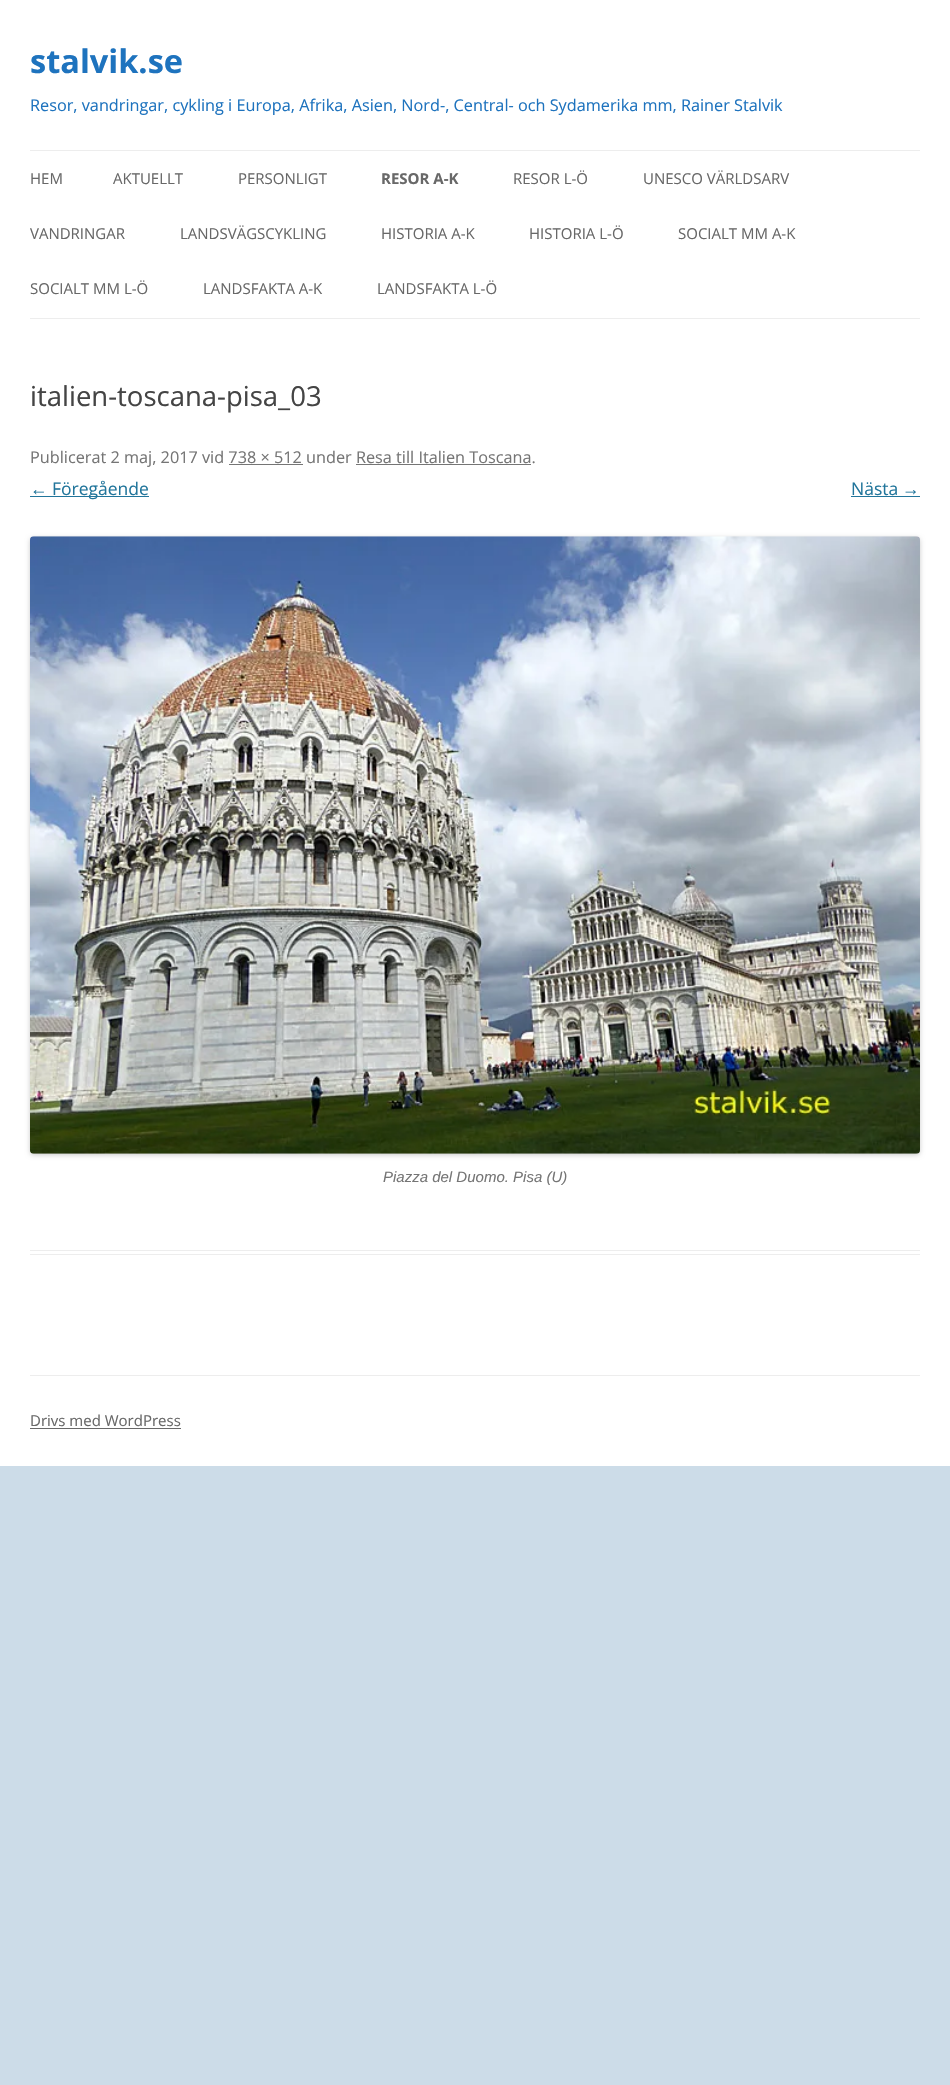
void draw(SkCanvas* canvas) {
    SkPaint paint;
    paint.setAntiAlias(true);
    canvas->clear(0xFFCCDCE8);
    paint.setColor(0xFFFFFFFF);
    canvas->drawRect(SkRect::MakeXYWH(0, 0, 950, 1466), paint);
    SkFont font1(fontMgr->matchFamilyStyle("Open Sans", SkFontStyle::Bold()), 32.5f);
    font1.setSubpixel(true);
    paint.setColor(0xFF1E73BE);
    canvas->drawString("stalvik.se", 30, 73, font1, paint);
    SkFont font2(fontMgr->matchFamilyStyle("Open Sans", SkFontStyle::Normal()), 16.25f);
    font2.setSubpixel(true);
    canvas->drawString("Resor, vandringar, cykling i Europa, Afrika, Asien, Nord-, Central- och Sydamerika mm, Rainer Stalvik", 30, 111, font2, paint);
    paint.setColor(0xFFEDEDED);
    canvas->drawRect(SkRect::MakeXYWH(30, 150, 890, 1), paint);
    canvas->drawRect(SkRect::MakeXYWH(30, 318, 890, 1), paint);
    SkFont font3(fontMgr->matchFamilyStyle("Open Sans", SkFontStyle::Normal()), 15);
    font3.setSubpixel(true);
    paint.setColor(0xFF686868);
    canvas->drawString("HEM", 30, 184, font3, paint);
    canvas->drawString("AKTUELLT", 113, 184, font3, paint);
    canvas->drawString("PERSONLIGT", 238, 184, font3, paint);
    SkFont font4(fontMgr->matchFamilyStyle("Open Sans", SkFontStyle::Bold()), 15);
    font4.setSubpixel(true);
    canvas->drawString("RESOR A-K", 381, 184, font4, paint);
    canvas->drawString("RESOR L-Ö", 513, 184, font3, paint);
    canvas->drawString("UNESCO VÄRLDSARV", 643, 184, font3, paint);
    canvas->drawString("VANDRINGAR", 30, 239, font3, paint);
    canvas->drawString("LANDSVÄGSCYKLING", 180, 239, font3, paint);
    canvas->drawString("HISTORIA A-K", 381, 239, font3, paint);
    canvas->drawString("HISTORIA L-Ö", 529, 239, font3, paint);
    canvas->drawString("SOCIALT MM A-K", 678, 239, font3, paint);
    canvas->drawString("SOCIALT MM L-Ö", 30, 294, font3, paint);
    canvas->drawString("LANDSFAKTA A-K", 203, 294, font3, paint);
    canvas->drawString("LANDSFAKTA L-Ö", 377, 294, font3, paint);
    paint.setColor(0xFFEDEDED);
    canvas->drawRect(SkRect::MakeXYWH(30, 1250, 890, 1), paint);
    canvas->drawRect(SkRect::MakeXYWH(30, 1254, 890, 1), paint);
    SkFont font5(fontMgr->matchFamilyStyle("Open Sans", SkFontStyle::Normal()), 27.5f);
    font5.setSubpixel(true);
    paint.setColor(0xFF444444);
    canvas->drawString("italien-toscana-pisa_03", 30, 406, font5, paint);
    paint.setColor(0xFF757575);
    canvas->drawString("Publicerat 2 maj, 2017 vid 738 × 512 under Resa till Italien Toscana.", 30, 463, font2, paint);
    canvas->drawRect(SkRect::MakeXYWH(229, 464, 74, 1), paint);
    canvas->drawRect(SkRect::MakeXYWH(356, 464, 175, 1), paint);
    SkFont font6(fontMgr->matchFamilyStyle("Liberation Sans", SkFontStyle::Normal()), 17.5f);
    font6.setSubpixel(true);
    paint.setColor(0xFF21759B);
    canvas->drawString("←", 30, 495, font6, paint);
    canvas->drawRect(SkRect::MakeXYWH(30, 496, 119, 1), paint);
    SkFont font7(fontMgr->matchFamilyStyle("Open Sans", SkFontStyle::Normal()), 17.5f);
    font7.setSubpixel(true);
    canvas->drawString("Föregående", 52, 495, font7, paint);
    canvas->drawString("Nästa", 851, 495, font7, paint);
    canvas->drawString("→", 902, 495, font6, paint);
    canvas->drawRect(SkRect::MakeXYWH(851, 496, 69, 1), paint);
    paint.setColor(0x33000000);
    paint.setMaskFilter(SkMaskFilter::MakeBlur(kNormal_SkBlurStyle, 2.5f));
    canvas->drawRoundRect(SkRect::MakeXYWH(30, 538, 890, 617), 4, 4, paint);
    paint.setMaskFilter(nullptr);
    canvas->drawImageRect(SkImages::DeferredFromEncodedData(SkData::MakeFromFileName("img1.png")), SkRect::MakeXYWH(30, 536, 890, 618), SkSamplingOptions());
    SkFont font8(fontMgr->matchFamilyStyle("Liberation Sans", SkFontStyle::Italic()), 15);
    font8.setSubpixel(true);
    paint.setColor(0xFF757575);
    canvas->drawString("Piazza del Duomo. Pisa (U)", 383, 1182, font8, paint);
    paint.setColor(0xFFEDEDED);
    canvas->drawRect(SkRect::MakeXYWH(30, 1375, 890, 1), paint);
    paint.setColor(0xFF686868);
    canvas->drawString("Drivs med WordPress", 30, 1426, font3, paint);
    canvas->drawRect(SkRect::MakeXYWH(30, 1428, 151, 1), paint);
}
